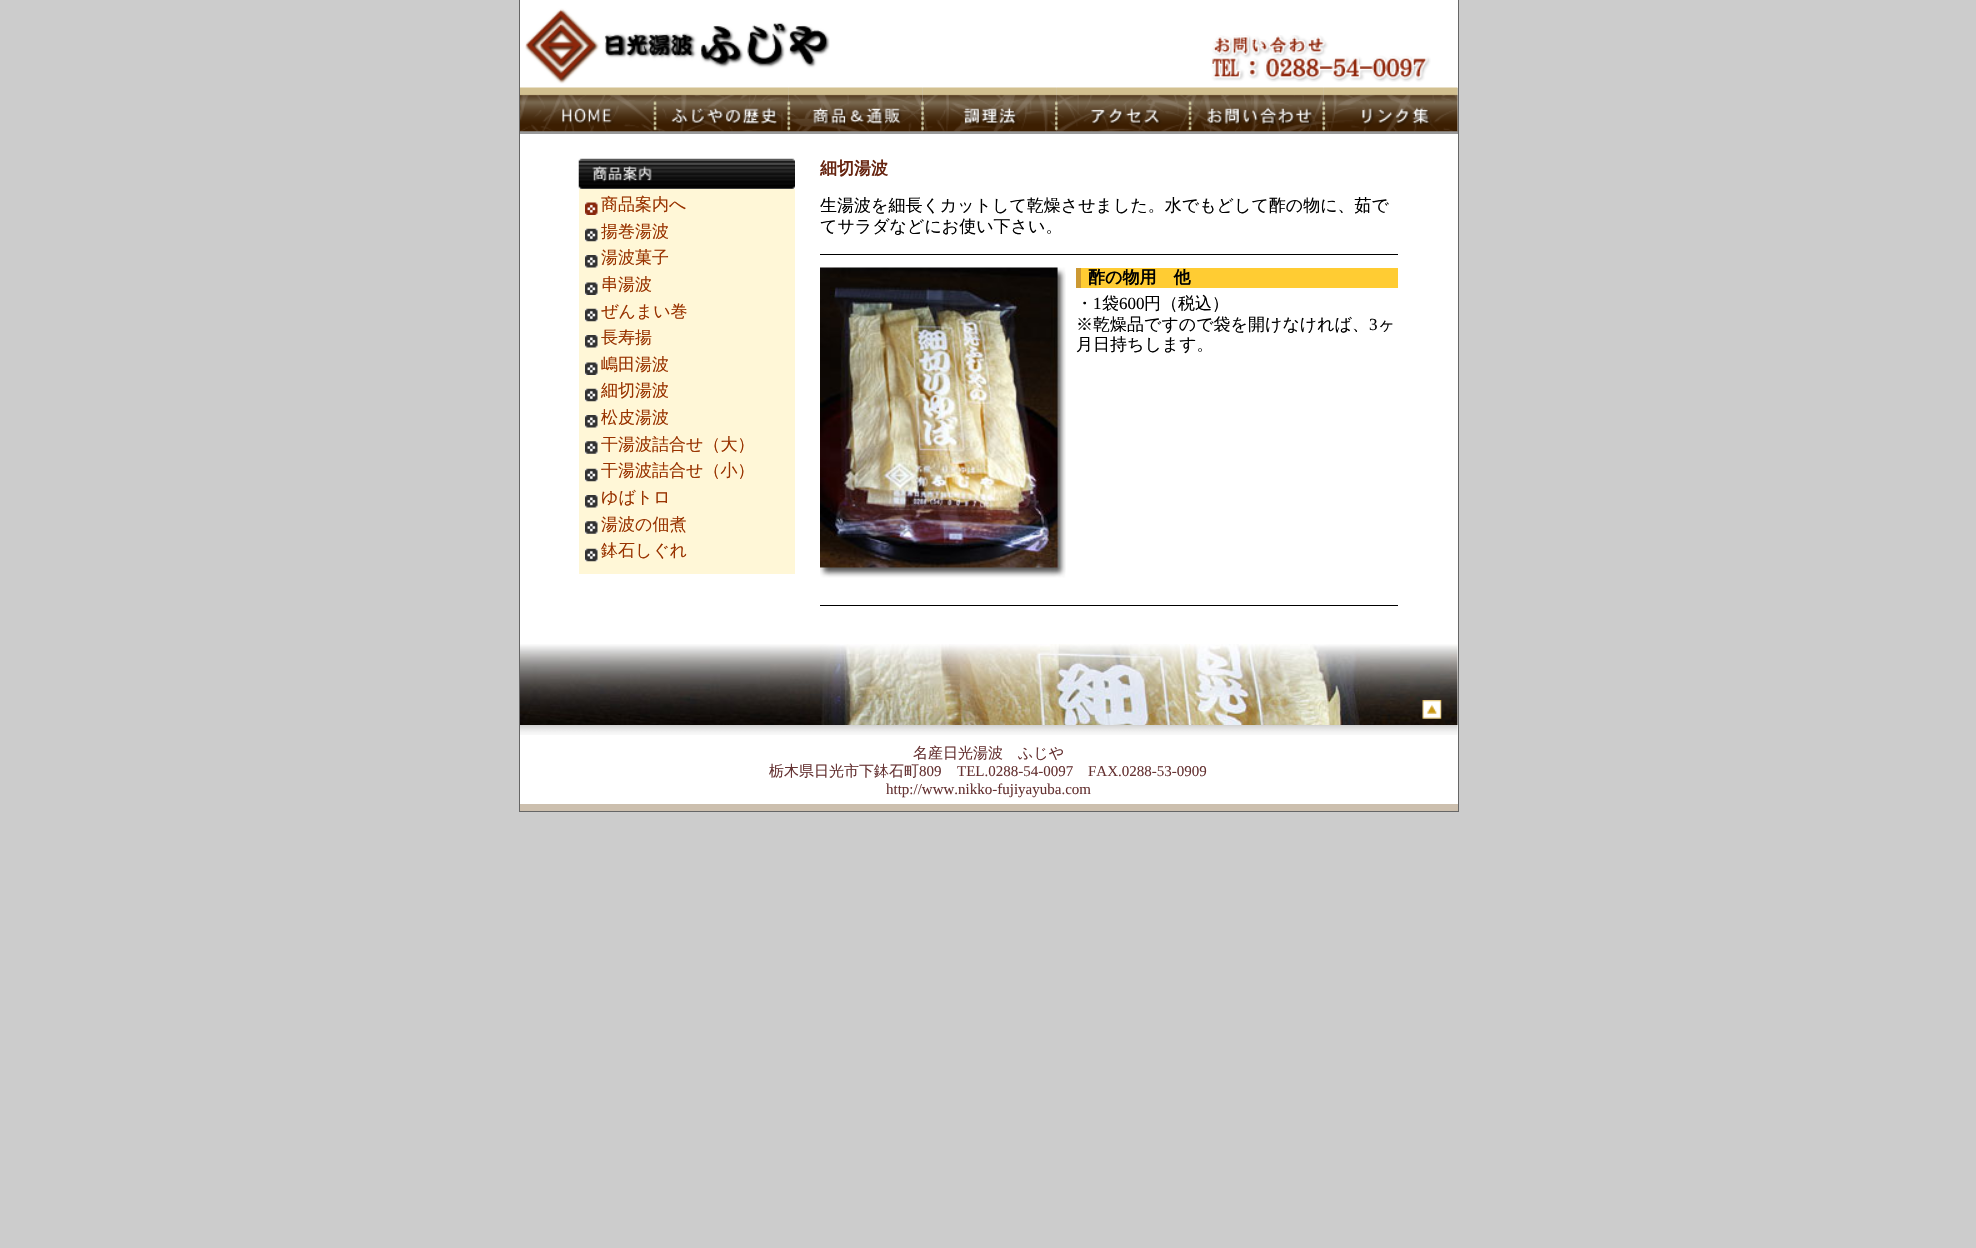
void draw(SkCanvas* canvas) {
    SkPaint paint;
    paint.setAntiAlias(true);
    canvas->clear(0xFFCCCCCC);
    paint.setColor(0xFF666666);
    canvas->drawRect(SkRect::MakeXYWH(519, 0, 1, 811), paint);
    paint.setColor(0xFFFFFFFF);
    canvas->drawRect(SkRect::MakeXYWH(520, 0, 938, 88), paint);
    canvas->drawImageRect(SkImages::DeferredFromEncodedData(SkData::MakeFromFileName("img1.png")), SkRect::MakeXYWH(525, 8, 305, 76), SkSamplingOptions());
    canvas->drawImageRect(SkImages::DeferredFromEncodedData(SkData::MakeFromFileName("img2.png")), SkRect::MakeXYWH(1211, 35, 220, 47), SkSamplingOptions());
    paint.setColor(0xFF666666);
    canvas->drawRect(SkRect::MakeXYWH(1458, 0, 1, 811), paint);
    paint.setColor(0xFF999999);
    canvas->drawRect(SkRect::MakeXYWH(520, 131, 938, 3), paint);
    canvas->drawImageRect(SkImages::DeferredFromEncodedData(SkData::MakeFromFileName("img3.png")), SkRect::MakeXYWH(520, 87, 135, 45), SkSamplingOptions());
    canvas->drawImageRect(SkImages::DeferredFromEncodedData(SkData::MakeFromFileName("img4.png")), SkRect::MakeXYWH(655, 87, 134, 45), SkSamplingOptions());
    canvas->drawImageRect(SkImages::DeferredFromEncodedData(SkData::MakeFromFileName("img5.png")), SkRect::MakeXYWH(788, 87, 135, 45), SkSamplingOptions());
    canvas->drawImageRect(SkImages::DeferredFromEncodedData(SkData::MakeFromFileName("img6.png")), SkRect::MakeXYWH(922, 87, 135, 45), SkSamplingOptions());
    canvas->drawImageRect(SkImages::DeferredFromEncodedData(SkData::MakeFromFileName("img7.png")), SkRect::MakeXYWH(1056, 87, 134, 45), SkSamplingOptions());
    canvas->drawImageRect(SkImages::DeferredFromEncodedData(SkData::MakeFromFileName("img8.png")), SkRect::MakeXYWH(1190, 87, 134, 45), SkSamplingOptions());
    canvas->drawImageRect(SkImages::DeferredFromEncodedData(SkData::MakeFromFileName("img9.png")), SkRect::MakeXYWH(1323, 87, 135, 45), SkSamplingOptions());
    paint.setColor(0xFFFFFFFF);
    canvas->drawRect(SkRect::MakeXYWH(520, 134, 938, 670), paint);
    canvas->drawImageRect(SkImages::DeferredFromEncodedData(SkData::MakeFromFileName("img10.png")), SkRect::MakeXYWH(578, 158, 217, 31), SkSamplingOptions());
    paint.setColor(0xFFFFF7D7);
    canvas->drawRect(SkRect::MakeXYWH(579, 189, 216, 385), paint);
    canvas->drawImageRect(SkImages::DeferredFromEncodedData(SkData::MakeFromFileName("img11.png")), SkRect::MakeXYWH(585, 202, 13, 13), SkSamplingOptions());
    SkFont font1(fontMgr->matchFamilyStyle("WenQuanYi Zen Hei", SkFontStyle(500, SkFontStyle::kNormal_Width, SkFontStyle::kUpright_Slant)), 17);
    font1.setSubpixel(true);
    paint.setColor(0xFF993300);
    canvas->drawString("商品案内へ", 601, 210, font1, paint);
    canvas->drawImageRect(SkImages::DeferredFromEncodedData(SkData::MakeFromFileName("img12.png")), SkRect::MakeXYWH(585, 228, 13, 14), SkSamplingOptions());
    canvas->drawString("揚巻湯波", 601, 237, font1, paint);
    canvas->drawImageRect(SkImages::DeferredFromEncodedData(SkData::MakeFromFileName("img13.png")), SkRect::MakeXYWH(585, 255, 13, 13), SkSamplingOptions());
    canvas->drawString("湯波菓子", 601, 263, font1, paint);
    canvas->drawImageRect(SkImages::DeferredFromEncodedData(SkData::MakeFromFileName("img14.png")), SkRect::MakeXYWH(585, 282, 13, 13), SkSamplingOptions());
    canvas->drawString("串湯波", 601, 290, font1, paint);
    canvas->drawImageRect(SkImages::DeferredFromEncodedData(SkData::MakeFromFileName("img12.png")), SkRect::MakeXYWH(585, 308, 13, 14), SkSamplingOptions());
    canvas->drawString("ぜんまい巻", 601, 317, font1, paint);
    canvas->drawImageRect(SkImages::DeferredFromEncodedData(SkData::MakeFromFileName("img13.png")), SkRect::MakeXYWH(585, 335, 13, 13), SkSamplingOptions());
    canvas->drawString("長寿揚", 601, 343, font1, paint);
    canvas->drawImageRect(SkImages::DeferredFromEncodedData(SkData::MakeFromFileName("img14.png")), SkRect::MakeXYWH(585, 362, 13, 13), SkSamplingOptions());
    canvas->drawString("嶋田湯波", 601, 370, font1, paint);
    canvas->drawImageRect(SkImages::DeferredFromEncodedData(SkData::MakeFromFileName("img12.png")), SkRect::MakeXYWH(585, 388, 13, 14), SkSamplingOptions());
    canvas->drawString("細切湯波", 601, 396, font1, paint);
    canvas->drawImageRect(SkImages::DeferredFromEncodedData(SkData::MakeFromFileName("img13.png")), SkRect::MakeXYWH(585, 415, 13, 13), SkSamplingOptions());
    canvas->drawString("松皮湯波", 601, 423, font1, paint);
    canvas->drawImageRect(SkImages::DeferredFromEncodedData(SkData::MakeFromFileName("img15.png")), SkRect::MakeXYWH(585, 441, 13, 13), SkSamplingOptions());
    canvas->drawString("干湯波詰合せ（大）", 601, 450, font1, paint);
    canvas->drawImageRect(SkImages::DeferredFromEncodedData(SkData::MakeFromFileName("img12.png")), SkRect::MakeXYWH(585, 468, 13, 14), SkSamplingOptions());
    canvas->drawString("干湯波詰合せ（小）", 601, 476, font1, paint);
    canvas->drawImageRect(SkImages::DeferredFromEncodedData(SkData::MakeFromFileName("img13.png")), SkRect::MakeXYWH(585, 495, 13, 13), SkSamplingOptions());
    canvas->drawString("ゆばトロ", 601, 503, font1, paint);
    canvas->drawImageRect(SkImages::DeferredFromEncodedData(SkData::MakeFromFileName("img15.png")), SkRect::MakeXYWH(585, 521, 13, 13), SkSamplingOptions());
    canvas->drawString("湯波の佃煮", 601, 530, font1, paint);
    canvas->drawImageRect(SkImages::DeferredFromEncodedData(SkData::MakeFromFileName("img12.png")), SkRect::MakeXYWH(585, 548, 13, 14), SkSamplingOptions());
    canvas->drawString("鉢石しぐれ", 601, 556, font1, paint);
    SkFont font2(fontMgr->matchFamilyStyle("WenQuanYi Zen Hei", SkFontStyle::Bold()), 17);
    font2.setSubpixel(true);
    paint.setColor(0xFF662410);
    canvas->drawString("細切湯波", 820, 174, font2, paint);
    paint.setColor(0xFF000000);
    canvas->drawString("生湯波を細長くカットして乾燥させました。水でもどして酢の物に、茹で", 820, 211, font1, paint);
    canvas->drawString("てサラダなどにお使い下さい。", 820, 232, font1, paint);
    canvas->drawRect(SkRect::MakeXYWH(820, 254, 578, 1), paint);
    canvas->drawImageRect(SkImages::DeferredFromEncodedData(SkData::MakeFromFileName("img16.png")), SkRect::MakeXYWH(820, 267, 246, 311), SkSamplingOptions());
    paint.setColor(0xFFCC9933);
    canvas->drawRect(SkRect::MakeXYWH(1076, 268, 5, 20), paint);
    paint.setColor(0xFFFFCC33);
    canvas->drawRect(SkRect::MakeXYWH(1081, 268, 317, 20), paint);
    paint.setColor(0xFF000000);
    canvas->drawString("酢の物用　他", 1088, 283, font2, paint);
    canvas->drawString("・", 1076, 309, font1, paint);
    SkFont font3(fontMgr->matchFamilyStyle("Liberation Serif", SkFontStyle::Normal()), 17);
    font3.setSubpixel(true);
    canvas->drawString("1", 1093, 309, font3, paint);
    canvas->drawString("袋", 1102, 309, font1, paint);
    canvas->drawString("600", 1119, 309, font3, paint);
    canvas->drawString("円（税込）", 1144, 309, font1, paint);
    canvas->drawString("※乾燥品ですので袋を開けなければ、", 1076, 330, font1, paint);
    canvas->drawString("3", 1369, 330, font3, paint);
    canvas->drawString("ヶ", 1378, 330, font1, paint);
    canvas->drawString("月日持ちします。", 1076, 350, font1, paint);
    canvas->drawRect(SkRect::MakeXYWH(820, 605, 578, 1), paint);
    canvas->drawImageRect(SkImages::DeferredFromEncodedData(SkData::MakeFromFileName("img17.png")), SkRect::MakeXYWH(520, 644, 938, 81), SkSamplingOptions());
    canvas->drawImageRect(SkImages::DeferredFromEncodedData(SkData::MakeFromFileName("img18.png")), SkRect::MakeXYWH(1422, 700, 20, 19), SkSamplingOptions());
    canvas->drawImageRect(SkImages::DeferredFromEncodedData(SkData::MakeFromFileName("img19.png")), SkRect::MakeXYWH(520, 725, 938, 10), SkSamplingOptions());
    SkFont font4(fontMgr->matchFamilyStyle("WenQuanYi Zen Hei", SkFontStyle(500, SkFontStyle::kNormal_Width, SkFontStyle::kUpright_Slant)), 15);
    font4.setSubpixel(true);
    paint.setColor(0xFF663333);
    canvas->drawString("名産日光湯波　ふじや", 913, 758, font4, paint);
    canvas->drawString("栃木県日光市下鉢石町", 769, 776, font4, paint);
    SkFont font5(fontMgr->matchFamilyStyle("Liberation Serif", SkFontStyle::Normal()), 15);
    font5.setSubpixel(true);
    canvas->drawString("809", 919, 776, font5, paint);
    canvas->drawString("TEL.0288-54-0097", 957, 776, font5, paint);
    canvas->drawString("FAX.0288-53-0909", 1088, 776, font5, paint);
    canvas->drawString("http://www.nikko-fujiyayuba.com", 886, 794, font5, paint);
    paint.setColor(0xFFCCBFAE);
    canvas->drawRect(SkRect::MakeXYWH(520, 804, 938, 7), paint);
    paint.setColor(0xFF666666);
    canvas->drawRect(SkRect::MakeXYWH(519, 811, 940, 1), paint);
}
